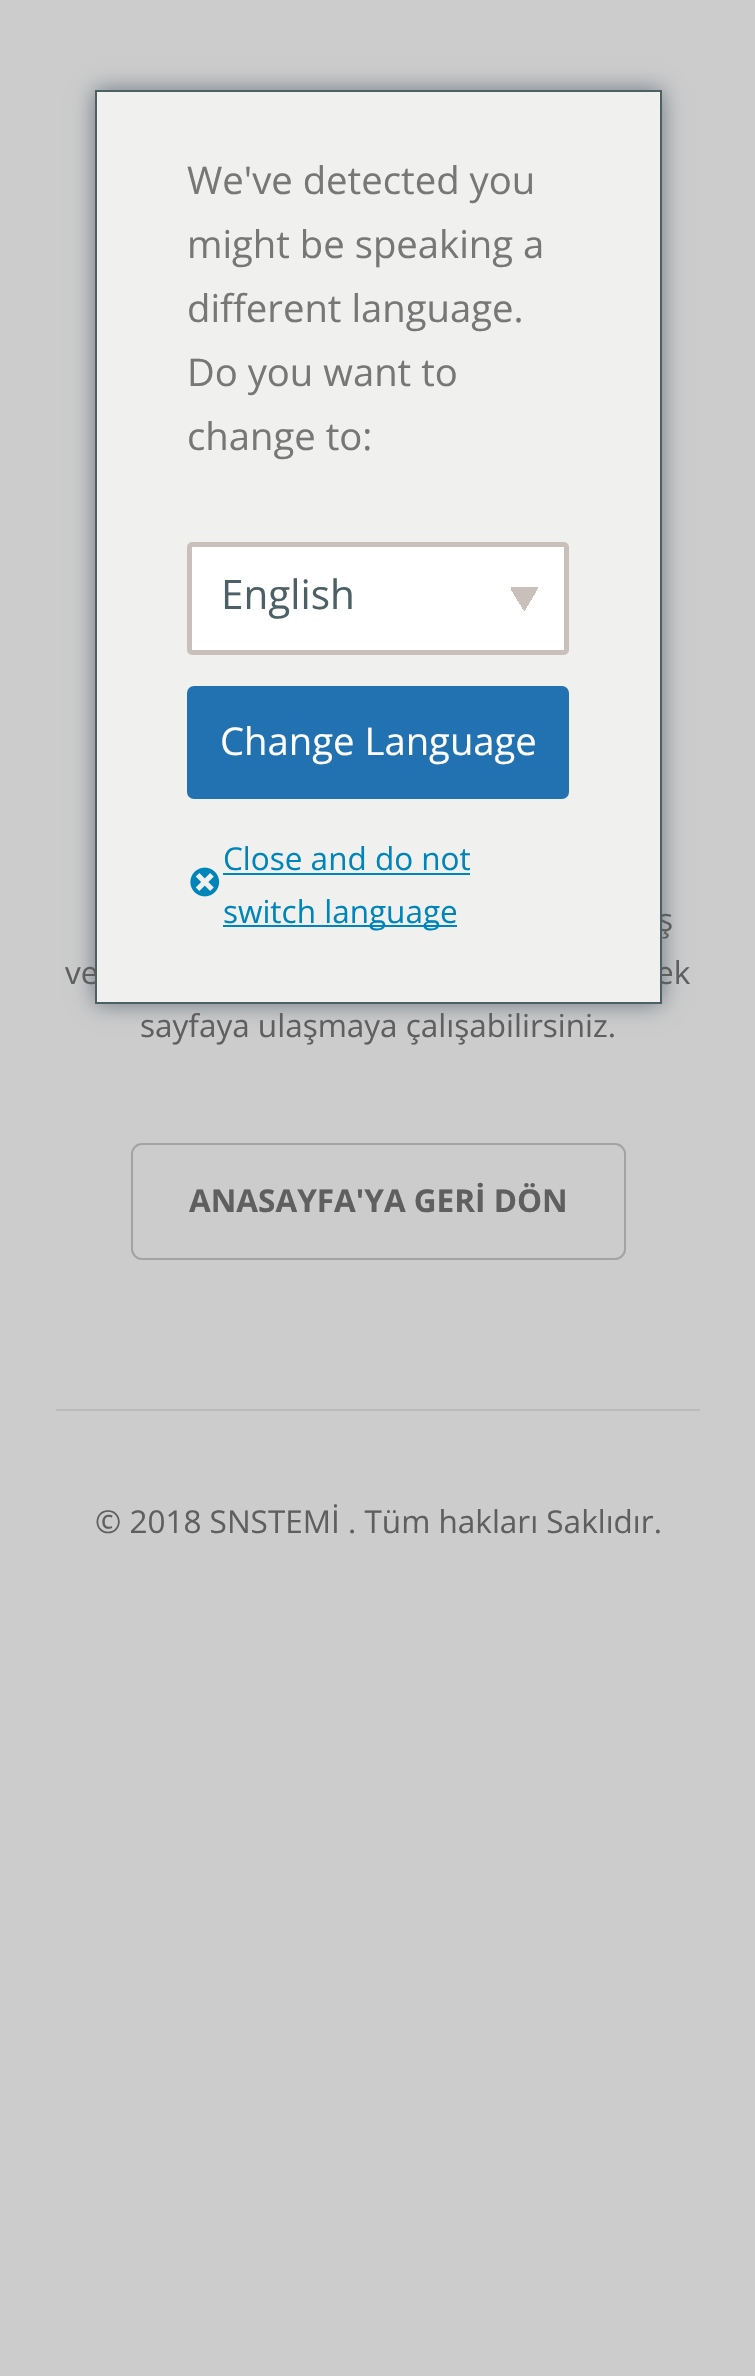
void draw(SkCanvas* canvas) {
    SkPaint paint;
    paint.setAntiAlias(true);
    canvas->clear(0xFFCCCCCC);
    paint.setColor(0xFF6C7781);
    paint.setMaskFilter(SkMaskFilter::MakeBlur(kNormal_SkBlurStyle, 11));
    canvas->drawRect(SkRect::MakeXYWH(95, 90, 567, 914), paint);
    paint.setMaskFilter(nullptr);
    SkFont font1(fontMgr->matchFamilyStyle("Open Sans", SkFontStyle::Normal()), 31.5f);
    font1.setSubpixel(true);
    paint.setColor(0xFF5F5F5F);
    canvas->drawString("ş", 658, 931, font1, paint);
    canvas->drawString("ve", 65, 984, font1, paint);
    canvas->drawString("ek", 656, 984, font1, paint);
    paint.setColor(0xFFF0F0EE);
    canvas->drawRect(SkRect::MakeXYWH(96, 91, 565, 912), paint);
    paint.setStyle(SkPaint::kStroke_Style);
    paint.setStrokeWidth(2);
    paint.setColor(0xFF4C6066);
    canvas->drawRect(SkRect::MakeXYWH(96, 91, 565, 912), paint);
    SkFont font2(fontMgr->matchFamilyStyle("Open Sans", SkFontStyle::Normal()), 38.25f);
    font2.setSubpixel(true);
    paint.setStyle(SkPaint::kFill_Style);
    paint.setColor(0xFF777777);
    canvas->drawString("We've detected you", 187, 194, font2, paint);
    canvas->drawString("might be speaking a", 187, 258, font2, paint);
    canvas->drawString("different language.", 187, 322, font2, paint);
    canvas->drawString("Do you want to", 187, 386, font2, paint);
    canvas->drawString("change to:", 187, 450, font2, paint);
    paint.setColor(0xFFFFFFFF);
    canvas->drawRoundRect(SkRect::MakeXYWH(187, 542, 382, 113), 5, 5, paint);
    {
        const SkColor colors[] = {0xFFC9C0BB, 0xFFFFFFFF};
        const float stops[] = {0.5f, 0.5f};
        const SkPoint ends[] = {{520, 594}, {542, 607}};
        paint.setShader(SkGradientShader::MakeLinear(ends, colors, stops, 2, SkTileMode::kClamp));
        paint.setAlpha(255);
    }
    canvas->drawRect(SkRect::MakeXYWH(524, 587, 14, 24), paint);
    {
        const SkColor colors[] = {0xFFFFFFFF, 0xFFC9C0BB};
        const float stops[] = {0.5f, 0.5f};
        const SkPoint ends[] = {{507, 607}, {528, 594}};
        paint.setShader(SkGradientShader::MakeLinear(ends, colors, stops, 2, SkTileMode::kClamp));
        paint.setAlpha(255);
    }
    canvas->drawRect(SkRect::MakeXYWH(511, 587, 13, 23), paint);
    paint.setStyle(SkPaint::kStroke_Style);
    paint.setStrokeWidth(5);
    paint.setShader(nullptr);
    paint.setColor(0xFFC9C0BB);
    canvas->drawRoundRect(SkRect::MakeXYWH(189.5f, 544.5f, 377, 108), 2.5f, 2.5f, paint);
    SkFont font3(fontMgr->matchFamilyStyle("Open Sans", SkFontStyle::Normal()), 40.5f);
    font3.setSubpixel(true);
    paint.setStyle(SkPaint::kFill_Style);
    paint.setColor(0xFF4C6066);
    canvas->drawString("English", 221, 609, font3, paint);
    paint.setColor(0xFF2271B1);
    canvas->drawRoundRect(SkRect::MakeXYWH(188, 687, 380, 111), 6, 6, paint);
    paint.setStyle(SkPaint::kStroke_Style);
    paint.setStrokeWidth(2);
    canvas->drawRoundRect(SkRect::MakeXYWH(188, 687, 380, 111), 6, 6, paint);
    paint.setStyle(SkPaint::kFill_Style);
    paint.setColor(0xFFFFFFFF);
    canvas->drawString("Change Language", 220, 755, font2, paint);
    canvas->drawImageRect(SkImages::DeferredFromEncodedData(SkData::MakeFromFileName("img1.png")), SkRect::MakeXYWH(190, 867, 30, 30), SkSamplingOptions());
    paint.setColor(0xFF0085BA);
    canvas->drawString("Close and do not", 223, 870, font1, paint);
    canvas->drawRect(SkRect::MakeXYWH(223, 873, 247, 2), paint);
    canvas->drawRect(SkRect::MakeXYWH(223, 925, 234, 2), paint);
    canvas->drawString("switch language", 223, 923, font1, paint);
    paint.setColor(0xFF5F5F5F);
    canvas->drawString("sayfaya ulaşmaya çalışabilirsiniz.", 140, 1037, font1, paint);
    paint.setStyle(SkPaint::kStroke_Style);
    paint.setColor(0xFFA3A3A3);
    canvas->drawRoundRect(SkRect::MakeXYWH(132, 1144, 493, 115), 10, 10, paint);
    SkFont font4(fontMgr->matchFamilyStyle("Open Sans", SkFontStyle::Bold()), 31.5f);
    font4.setSubpixel(true);
    paint.setStyle(SkPaint::kFill_Style);
    paint.setColor(0xFF5F5F5F);
    canvas->drawString("ANASAYFA'YA GERİ DÖN", 189, 1212, font4, paint);
    paint.setColor(0xFFBBBBBB);
    canvas->drawRect(SkRect::MakeXYWH(56, 1409, 644, 2), paint);
    paint.setColor(0xFF5F5F5F);
    canvas->drawString("© 2018 SNSTEMİ . Tüm hakları Saklıdır.", 95, 1533, font1, paint);
}
